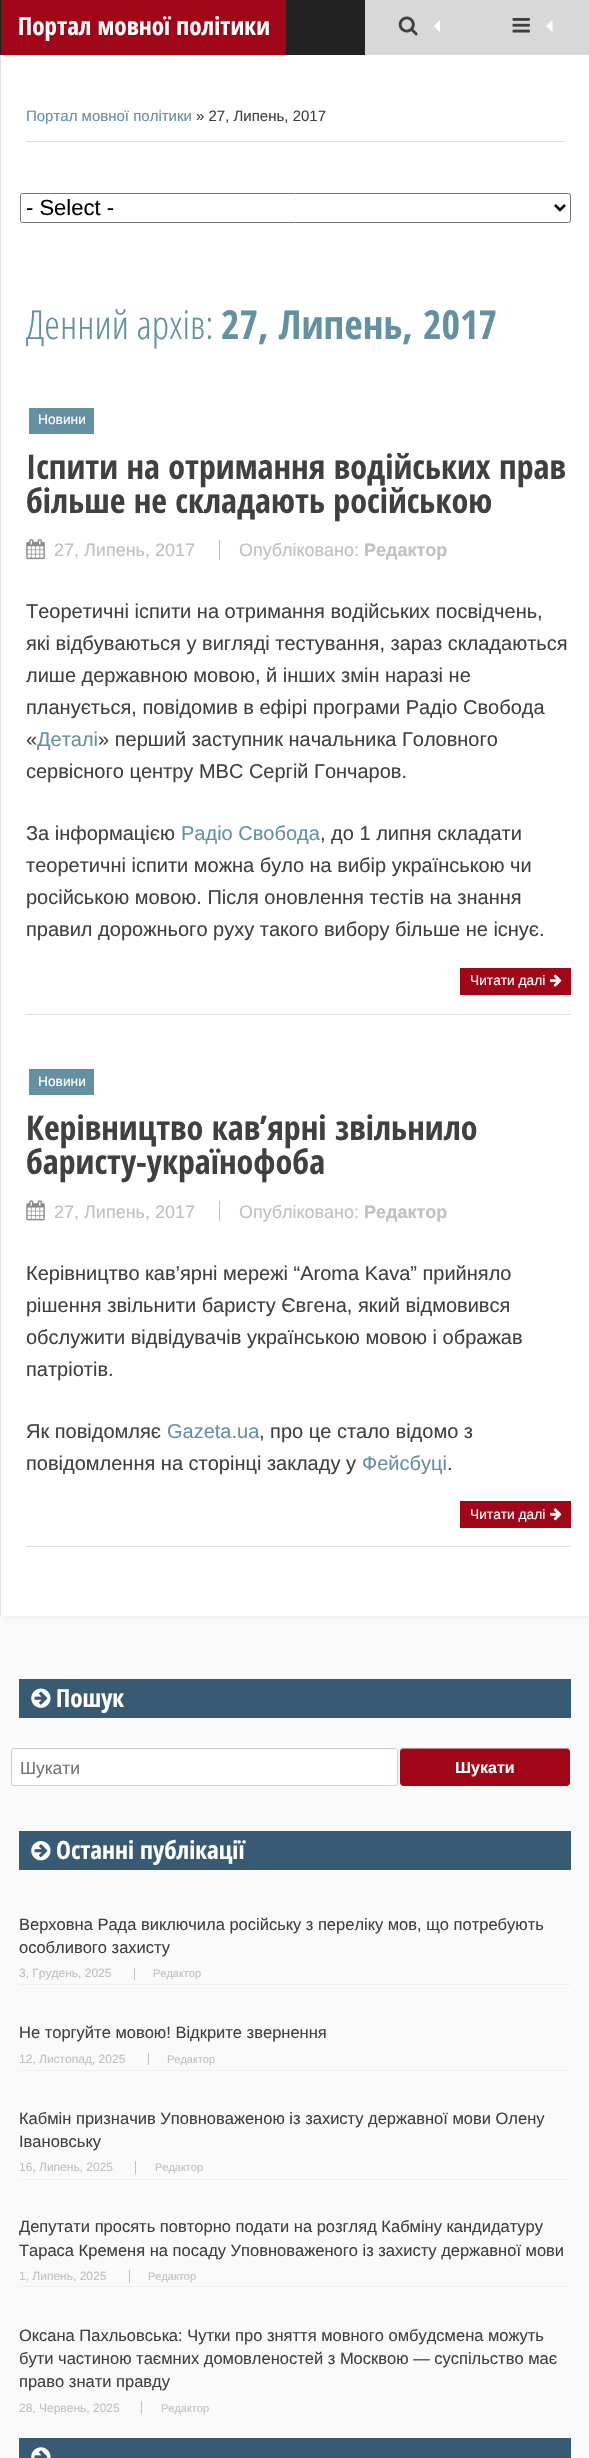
void draw(SkCanvas* canvas) {
    SkPaint paint;
    paint.setAntiAlias(true);
    canvas->clear(0xFFFAFAFA);
    paint.setColor(0xFFE5E5E5);
    paint.setMaskFilter(SkMaskFilter::MakeBlur(kNormal_SkBlurStyle, 3));
    canvas->drawRect(SkRect::MakeXYWH(6, 55, 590, 1561), paint);
    paint.setMaskFilter(nullptr);
    paint.setColor(0xFF212121);
    canvas->drawRect(SkRect::MakeXYWH(0, 0, 365, 55), paint);
    paint.setColor(0xFFA10518);
    canvas->drawRect(SkRect::MakeXYWH(1, 0, 285, 55), paint);
    SkFont font1(fontMgr->matchFamilyStyle("Open Sans Condensed", SkFontStyle::Bold()), 25);
    font1.setSubpixel(true);
    paint.setColor(0xFFFFFFFF);
    canvas->drawString("Портал мовної політики", 18, 35, font1, paint);
    paint.setColor(0xFFD8D8D8);
    canvas->drawRect(SkRect::MakeXYWH(365, 0, 224, 55), paint);
    canvas->drawImageRect(SkImages::DeferredFromEncodedData(SkData::MakeFromFileName("img1.png")), SkRect::MakeXYWH(398, 16, 20, 20), SkSamplingOptions());
    paint.setColor(0xFFFFFFFF);
    canvas->drawPath(SkPathBuilder().moveTo(440, 20).lineTo(440, 32.5f).lineTo(434, 26).close().detach(), paint);
    canvas->drawImageRect(SkImages::DeferredFromEncodedData(SkData::MakeFromFileName("img2.png")), SkRect::MakeXYWH(512, 18, 18, 15), SkSamplingOptions());
    canvas->drawPath(SkPathBuilder().moveTo(552.5f, 20).lineTo(552.5f, 32.5f).lineTo(546, 26).close().detach(), paint);
    canvas->drawRect(SkRect::MakeXYWH(1, 55, 588, 1561), paint);
    paint.setColor(0xFFE2E0E0);
    canvas->drawRect(SkRect::MakeXYWH(0, 55, 1, 1561), paint);
    paint.setColor(0xFFDFDFDF);
    canvas->drawRect(SkRect::MakeXYWH(26, 141, 539, 1), paint);
    SkFont font2(fontMgr->matchFamilyStyle("Liberation Sans", SkFontStyle::Normal()), 15);
    font2.setSubpixel(true);
    paint.setColor(0xFF6491A1);
    canvas->drawString("Портал мовної політики", 26, 121, font2, paint);
    paint.setColor(0xFF404040);
    canvas->drawString("» 27, Липень, 2017", 196, 121, font2, paint);
    paint.setStyle(SkPaint::kStroke_Style);
    paint.setStrokeWidth(1);
    paint.setColor(0xFF767676);
    canvas->drawRoundRect(SkRect::MakeXYWH(20.5f, 193.5f, 550, 29), 2, 2, paint);
    paint.setStrokeWidth(2.5f);
    paint.setColor(0xFF000000);
    canvas->drawPath(SkPathBuilder().moveTo(555, 205).lineTo(560, 210).lineTo(565, 205).detach(), paint);
    SkFont font3(fontMgr->matchFamilyStyle("Liberation Sans", SkFontStyle::Normal()), 22);
    font3.setSubpixel(true);
    paint.setStyle(SkPaint::kFill_Style);
    canvas->drawString("- Select -", 26, 215, font3, paint);
    SkFont font4(fontMgr->matchFamilyStyle("Open Sans Condensed", SkFontStyle(300, SkFontStyle::kNormal_Width, SkFontStyle::kUpright_Slant)), 40);
    font4.setSubpixel(true);
    paint.setColor(0xFF6491A1);
    canvas->drawString("Денний архів:", 26, 339, font4, paint);
    SkFont font5(fontMgr->matchFamilyStyle("Open Sans Condensed", SkFontStyle::Bold()), 40);
    font5.setSubpixel(true);
    canvas->drawString("27, Липень, 2017", 221, 339, font5, paint);
    canvas->drawRect(SkRect::MakeXYWH(29, 408, 65, 26), paint);
    SkFont font6(fontMgr->matchFamilyStyle("Liberation Sans", SkFontStyle::Normal()), 13.75f);
    font6.setSubpixel(true);
    paint.setColor(0xFFFFFFFF);
    canvas->drawString("Новини", 38, 424, font6, paint);
    SkFont font7(fontMgr->matchFamilyStyle("Open Sans Condensed", SkFontStyle::Bold()), 34);
    font7.setSubpixel(true);
    paint.setColor(0xFF404040);
    canvas->drawString("Іспити на отримання водійських прав", 26, 479, font7, paint);
    canvas->drawString("більше не складають російською", 26, 513, font7, paint);
    canvas->drawImageRect(SkImages::DeferredFromEncodedData(SkData::MakeFromFileName("img3.png")), SkRect::MakeXYWH(26, 539, 19, 21), SkSamplingOptions());
    SkFont font8(fontMgr->matchFamilyStyle("Liberation Sans", SkFontStyle::Normal()), 18);
    font8.setSubpixel(true);
    paint.setColor(0xFFC2C1C1);
    canvas->drawString("27, Липень, 2017", 54, 556, font8, paint);
    canvas->drawString("Опубліковано:", 239, 556, font8, paint);
    canvas->drawRect(SkRect::MakeXYWH(219, 540, 1, 20), paint);
    SkFont font9(fontMgr->matchFamilyStyle("Liberation Sans", SkFontStyle::Bold()), 18);
    font9.setSubpixel(true);
    canvas->drawString("Редактор", 364, 556, font9, paint);
    SkFont font10(fontMgr->matchFamilyStyle("Liberation Sans", SkFontStyle::Normal()), 20);
    font10.setSubpixel(true);
    paint.setColor(0xFF404040);
    canvas->drawString("Теоретичні іспити на отримання водійських посвідчень,", 26, 618, font10, paint);
    canvas->drawString("які відбуваються у вигляді тестування, зараз складаються", 26, 650, font10, paint);
    canvas->drawString("лише державною мовою, й інших змін наразі не", 26, 682, font10, paint);
    canvas->drawString("планується, повідомив в ефірі програми Радіо Свобода", 26, 714, font10, paint);
    canvas->drawString("«", 26, 746, font10, paint);
    paint.setColor(0xFF6491A1);
    canvas->drawString("Деталі", 37, 746, font10, paint);
    paint.setColor(0xFF404040);
    canvas->drawString("» перший заступник начальника Головного", 98, 746, font10, paint);
    canvas->drawString("сервісного центру МВС Сергій Гончаров.", 26, 778, font10, paint);
    canvas->drawString("За інформацією", 26, 840, font10, paint);
    paint.setColor(0xFF6491A1);
    canvas->drawString("Радіо Свобода", 181, 840, font10, paint);
    paint.setColor(0xFF404040);
    canvas->drawString(", до 1 липня складати", 320, 840, font10, paint);
    canvas->drawString("теоретичні іспити можна було на вибір українською чи", 26, 872, font10, paint);
    canvas->drawString("російською мовою. Після оновлення тестів на знання", 26, 904, font10, paint);
    canvas->drawString("правил дорожнього руху такого вибору більше не існує.", 26, 936, font10, paint);
    paint.setColor(0xFFA10518);
    canvas->drawRect(SkRect::MakeXYWH(460, 968, 111, 27), paint);
    paint.setColor(0xFFFFFFFF);
    canvas->drawString("Читати далі", 470, 985, font6, paint);
    canvas->drawImageRect(SkImages::DeferredFromEncodedData(SkData::MakeFromFileName("img4.png")), SkRect::MakeXYWH(550, 974, 12, 13), SkSamplingOptions());
    paint.setColor(0xFFDFDFDF);
    canvas->drawRect(SkRect::MakeXYWH(26, 1014, 545, 1), paint);
    paint.setColor(0xFF6491A1);
    canvas->drawRect(SkRect::MakeXYWH(29, 1069, 65, 26), paint);
    paint.setColor(0xFFFFFFFF);
    canvas->drawString("Новини", 38, 1086, font6, paint);
    paint.setColor(0xFF404040);
    canvas->drawString("Керівництво кав’ярні звільнило", 26, 1140, font7, paint);
    canvas->drawString("баристу-українофоба", 26, 1174, font7, paint);
    canvas->drawImageRect(SkImages::DeferredFromEncodedData(SkData::MakeFromFileName("img5.png")), SkRect::MakeXYWH(26, 1200, 19, 21), SkSamplingOptions());
    paint.setColor(0xFFC2C1C1);
    canvas->drawString("27, Липень, 2017", 54, 1218, font8, paint);
    canvas->drawString("Опубліковано:", 239, 1218, font8, paint);
    canvas->drawRect(SkRect::MakeXYWH(219, 1201, 1, 20), paint);
    canvas->drawString("Редактор", 364, 1218, font9, paint);
    paint.setColor(0xFF404040);
    canvas->drawString("Керівництво кав’ярні мережі “Aroma Kava” прийняло", 26, 1280, font10, paint);
    canvas->drawString("рішення звільнити баристу Євгена, який відмовився", 26, 1312, font10, paint);
    canvas->drawString("обслужити відвідувачів українською мовою і ображав", 26, 1344, font10, paint);
    canvas->drawString("патріотів.", 26, 1376, font10, paint);
    canvas->drawString("Як повідомляє", 26, 1438, font10, paint);
    paint.setColor(0xFF6491A1);
    canvas->drawString("Gazeta.ua", 167, 1438, font10, paint);
    paint.setColor(0xFF404040);
    canvas->drawString(", про це стало відомо з", 259, 1438, font10, paint);
    canvas->drawString("повідомлення на сторінці закладу у", 26, 1470, font10, paint);
    paint.setColor(0xFF6491A1);
    canvas->drawString("Фейсбуці", 362, 1470, font10, paint);
    paint.setColor(0xFF404040);
    canvas->drawString(".", 447, 1470, font10, paint);
    paint.setColor(0xFFA10518);
    canvas->drawRect(SkRect::MakeXYWH(460, 1501, 111, 27), paint);
    paint.setColor(0xFFFFFFFF);
    canvas->drawString("Читати далі", 470, 1519, font6, paint);
    canvas->drawImageRect(SkImages::DeferredFromEncodedData(SkData::MakeFromFileName("img6.png")), SkRect::MakeXYWH(550, 1508, 12, 13), SkSamplingOptions());
    paint.setColor(0xFFDFDFDF);
    canvas->drawRect(SkRect::MakeXYWH(26, 1546, 545, 1), paint);
    paint.setColor(0xFF385A72);
    canvas->drawRect(SkRect::MakeXYWH(19, 1679, 552, 39), paint);
    canvas->drawImageRect(SkImages::DeferredFromEncodedData(SkData::MakeFromFileName("img7.png")), SkRect::MakeXYWH(31, 1688, 20, 20), SkSamplingOptions());
    paint.setColor(0xFFFFFFFF);
    canvas->drawString("Пошук", 56, 1707, font1, paint);
    canvas->drawRoundRect(SkRect::MakeXYWH(11.5f, 1748.5f, 386, 37), 2, 2, paint);
    paint.setStyle(SkPaint::kStroke_Style);
    paint.setStrokeWidth(1);
    paint.setColor(0xFFCCCCCC);
    canvas->drawRoundRect(SkRect::MakeXYWH(11.5f, 1748.5f, 386, 37), 2, 2, paint);
    SkFont font11(fontMgr->matchFamilyStyle("Liberation Sans", SkFontStyle::Normal()), 17.5f);
    font11.setSubpixel(true);
    paint.setStyle(SkPaint::kFill_Style);
    paint.setColor(0xFF757575);
    canvas->drawString("Шукати", 20, 1774, font11, paint);
    paint.setColor(0xFFA10518);
    canvas->drawRoundRect(SkRect::MakeXYWH(400, 1748, 170, 38), 4, 4, paint);
    paint.setColor(0x80FFFFFF);
    canvas->drawPath(SkPathBuilder().moveTo(404, 1749).lineTo(566, 1749).cubicTo(568, 1749, 570, 1750, 570, 1752).cubicTo(570, 1750, 568, 1748, 566, 1748).lineTo(404, 1748).cubicTo(402, 1748, 400, 1750, 400, 1752).cubicTo(400, 1750, 402, 1749, 404, 1749).close().detach(), paint);
    SkFont font12(fontMgr->matchFamilyStyle("Liberation Sans", SkFontStyle::Bold()), 16);
    font12.setSubpixel(true);
    paint.setColor(0xFFFFFFFF);
    canvas->drawString("Шукати", 455, 1773, font12, paint);
    paint.setColor(0xFF385A72);
    canvas->drawRect(SkRect::MakeXYWH(19, 1831, 552, 39), paint);
    canvas->drawImageRect(SkImages::DeferredFromEncodedData(SkData::MakeFromFileName("img8.png")), SkRect::MakeXYWH(31, 1841, 20, 20), SkSamplingOptions());
    paint.setColor(0xFFFFFFFF);
    canvas->drawString("Останні публікації", 56, 1859, font1, paint);
    SkFont font13(fontMgr->matchFamilyStyle("Liberation Sans", SkFontStyle::Normal()), 16.5f);
    font13.setSubpixel(true);
    paint.setColor(0xFF404040);
    canvas->drawString("Верховна Рада виключила російську з переліку мов, що потребують", 19, 1930, font13, paint);
    canvas->drawString("особливого захисту", 19, 1953, font13, paint);
    paint.setColor(0xFFF1F0F0);
    canvas->drawRect(SkRect::MakeXYWH(19, 1984, 552, 1), paint);
    SkFont font14(fontMgr->matchFamilyStyle("Liberation Sans", SkFontStyle::Normal()), 12);
    font14.setSubpixel(true);
    paint.setColor(0xFFC2C1C1);
    canvas->drawString("3, Грудень, 2025", 19, 1977, font14, paint);
    SkFont font15(fontMgr->matchFamilyStyle("Liberation Sans", SkFontStyle::Normal()), 11);
    font15.setSubpixel(true);
    canvas->drawString("Редактор", 153, 1977, font15, paint);
    canvas->drawRect(SkRect::MakeXYWH(134, 1968, 1, 12), paint);
    paint.setColor(0xFF404040);
    canvas->drawString("Не торгуйте мовою! Відкрите звернення", 19, 2038, font13, paint);
    paint.setColor(0xFFF1F0F0);
    canvas->drawRect(SkRect::MakeXYWH(19, 2070, 552, 1), paint);
    paint.setColor(0xFFC2C1C1);
    canvas->drawString("12, Листопад, 2025", 19, 2063, font14, paint);
    canvas->drawString("Редактор", 167, 2063, font15, paint);
    canvas->drawRect(SkRect::MakeXYWH(148, 2053, 1, 12), paint);
    paint.setColor(0xFF404040);
    canvas->drawString("Кабмін призначив Уповноваженою із захисту державної мови Олену", 19, 2124, font13, paint);
    canvas->drawString("Івановську", 19, 2147, font13, paint);
    paint.setColor(0xFFF1F0F0);
    canvas->drawRect(SkRect::MakeXYWH(19, 2179, 552, 1), paint);
    paint.setColor(0xFFC2C1C1);
    canvas->drawString("16, Липень, 2025", 19, 2171, font14, paint);
    canvas->drawString("Редактор", 155, 2171, font15, paint);
    canvas->drawRect(SkRect::MakeXYWH(135, 2161, 1, 13), paint);
    paint.setColor(0xFF404040);
    canvas->drawString("Депутати просять повторно подати на розгляд Кабміну кандидатуру", 19, 2232, font13, paint);
    canvas->drawString("Тараса Кременя на посаду Уповноваженого із захисту державної мови", 19, 2256, font13, paint);
    paint.setColor(0xFFF1F0F0);
    canvas->drawRect(SkRect::MakeXYWH(19, 2286, 552, 1), paint);
    paint.setColor(0xFFC2C1C1);
    canvas->drawString("1, Липень, 2025", 19, 2280, font14, paint);
    canvas->drawString("Редактор", 148, 2280, font15, paint);
    canvas->drawRect(SkRect::MakeXYWH(129, 2270, 1, 13), paint);
    paint.setColor(0xFF404040);
    canvas->drawString("Оксана Пахльовська: Чутки про зняття мовного омбудсмена можуть", 19, 2341, font13, paint);
    canvas->drawString("бути частиною таємних домовленостей з Москвою — суспільство має", 19, 2364, font13, paint);
    canvas->drawString("право знати правду", 19, 2387, font13, paint);
    paint.setColor(0xFFC2C1C1);
    canvas->drawString("28, Червень, 2025", 19, 2412, font14, paint);
    canvas->drawString("Редактор", 161, 2412, font15, paint);
    canvas->drawRect(SkRect::MakeXYWH(141, 2401, 1, 13), paint);
    paint.setColor(0xFF385A72);
    canvas->drawRect(SkRect::MakeXYWH(19, 2438, 552, 20), paint);
    canvas->drawImageRect(SkImages::DeferredFromEncodedData(SkData::MakeFromFileName("img9.png")), SkRect::MakeXYWH(31, 2447, 20, 11), SkSamplingOptions());
}
